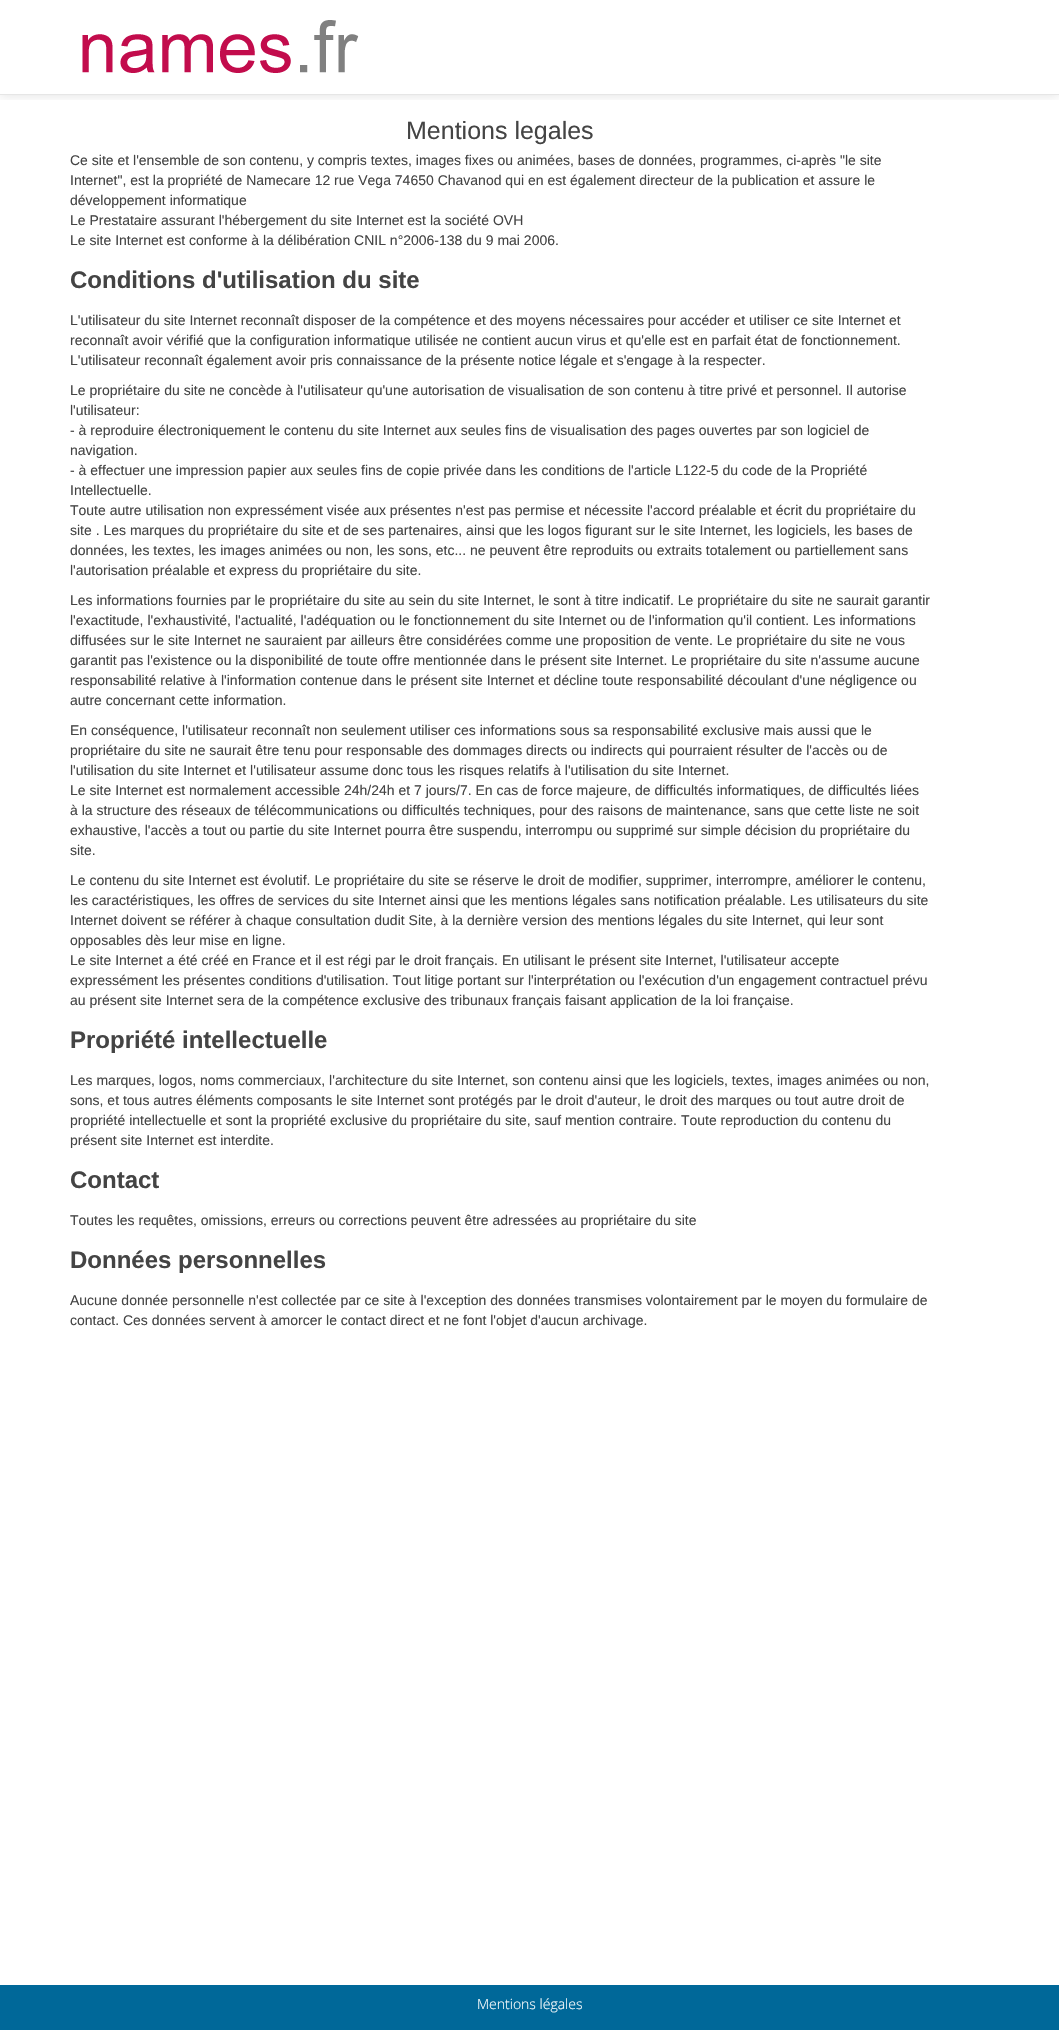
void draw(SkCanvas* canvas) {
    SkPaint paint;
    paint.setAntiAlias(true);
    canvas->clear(0xFFFFFFFF);
    canvas->save();
    canvas->clipRect(SkRect::MakeXYWH(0, 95, 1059, 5));
    paint.setColor(0x1A000000);
    paint.setMaskFilter(SkMaskFilter::MakeBlur(kNormal_SkBlurStyle, 5));
    canvas->drawRect(SkRect::MakeXYWH(0, 1, 1059, 95), paint);
    paint.setMaskFilter(nullptr);
    canvas->restore();
    paint.setColor(0xFFE6E6E6);
    canvas->drawRect(SkRect::MakeXYWH(0, 94, 1059, 1), paint);
    canvas->drawImageRect(SkImages::DeferredFromEncodedData(SkData::MakeFromFileName("img1.png")), SkRect::MakeXYWH(82, 20, 277, 53), SkSamplingOptions());
    SkFont font1(fontMgr->matchFamilyStyle("Liberation Sans", SkFontStyle::Normal()), 25);
    font1.setSubpixel(true);
    paint.setColor(0xFF444444);
    canvas->drawString("Mentions legales", 406, 139, font1, paint);
    SkFont font2(fontMgr->matchFamilyStyle("Liberation Sans", SkFontStyle::Normal()), 14);
    font2.setSubpixel(true);
    canvas->drawString("Ce site et l'ensemble de son contenu, y compris textes, images fixes ou animées, bases de données, programmes, ci-après \"le site", 70, 165, font2, paint);
    canvas->drawString("Internet\", est la propriété de Namecare 12 rue Vega 74650 Chavanod qui en est également directeur de la publication et assure le", 70, 185, font2, paint);
    canvas->drawString("développement informatique", 70, 205, font2, paint);
    canvas->drawString("Le Prestataire assurant l'hébergement du site Internet est la société OVH", 70, 225, font2, paint);
    canvas->drawString("Le site Internet est conforme à la délibération CNIL n°2006-138 du 9 mai 2006.", 70, 245, font2, paint);
    SkFont font3(fontMgr->matchFamilyStyle("Liberation Sans", SkFontStyle::Bold()), 24);
    font3.setSubpixel(true);
    canvas->drawString("Conditions d'utilisation du site", 70, 288, font3, paint);
    canvas->drawString("L'utilisateur du site Internet reconnaît disposer de la compétence et des moyens nécessaires pour accéder et utiliser ce site Internet et", 70, 325, font2, paint);
    canvas->drawString("reconnaît avoir vérifié que la configuration informatique utilisée ne contient aucun virus et qu'elle est en parfait état de fonctionnement.", 70, 345, font2, paint);
    canvas->drawString("L'utilisateur reconnaît également avoir pris connaissance de la présente notice légale et s'engage à la respecter.", 70, 365, font2, paint);
    canvas->drawString("Le propriétaire du site ne concède à l'utilisateur qu'une autorisation de visualisation de son contenu à titre privé et personnel. Il autorise", 70, 395, font2, paint);
    canvas->drawString("l'utilisateur:", 70, 415, font2, paint);
    canvas->drawString("- à reproduire électroniquement le contenu du site Internet aux seules fins de visualisation des pages ouvertes par son logiciel de", 70, 435, font2, paint);
    canvas->drawString("navigation.", 70, 455, font2, paint);
    canvas->drawString("- à effectuer une impression papier aux seules fins de copie privée dans les conditions de l'article L122-5 du code de la Propriété", 70, 475, font2, paint);
    canvas->drawString("Intellectuelle.", 70, 495, font2, paint);
    canvas->drawString("Toute autre utilisation non expressément visée aux présentes n'est pas permise et nécessite l'accord préalable et écrit du propriétaire du", 70, 515, font2, paint);
    canvas->drawString("site . Les marques du propriétaire du site et de ses partenaires, ainsi que les logos figurant sur le site Internet, les logiciels, les bases de", 70, 535, font2, paint);
    canvas->drawString("données, les textes, les images animées ou non, les sons, etc... ne peuvent être reproduits ou extraits totalement ou partiellement sans", 70, 555, font2, paint);
    canvas->drawString("l'autorisation préalable et express du propriétaire du site.", 70, 575, font2, paint);
    canvas->drawString("Les informations fournies par le propriétaire du site au sein du site Internet, le sont à titre indicatif. Le propriétaire du site ne saurait garantir", 70, 605, font2, paint);
    canvas->drawString("l'exactitude, l'exhaustivité, l'actualité, l'adéquation ou le fonctionnement du site Internet ou de l'information qu'il contient. Les informations", 70, 625, font2, paint);
    canvas->drawString("diffusées sur le site Internet ne sauraient par ailleurs être considérées comme une proposition de vente. Le propriétaire du site ne vous", 70, 645, font2, paint);
    canvas->drawString("garantit pas l'existence ou la disponibilité de toute offre mentionnée dans le présent site Internet. Le propriétaire du site n'assume aucune", 70, 665, font2, paint);
    canvas->drawString("responsabilité relative à l'information contenue dans le présent site Internet et décline toute responsabilité découlant d'une négligence ou", 70, 685, font2, paint);
    canvas->drawString("autre concernant cette information.", 70, 705, font2, paint);
    canvas->drawString("En conséquence, l'utilisateur reconnaît non seulement utiliser ces informations sous sa responsabilité exclusive mais aussi que le", 70, 735, font2, paint);
    canvas->drawString("propriétaire du site ne saurait être tenu pour responsable des dommages directs ou indirects qui pourraient résulter de l'accès ou de", 70, 755, font2, paint);
    canvas->drawString("l'utilisation du site Internet et l'utilisateur assume donc tous les risques relatifs à l'utilisation du site Internet.", 70, 775, font2, paint);
    canvas->drawString("Le site Internet est normalement accessible 24h/24h et 7 jours/7. En cas de force majeure, de difficultés informatiques, de difficultés liées", 70, 795, font2, paint);
    canvas->drawString("à la structure des réseaux de télécommunications ou difficultés techniques, pour des raisons de maintenance, sans que cette liste ne soit", 70, 815, font2, paint);
    canvas->drawString("exhaustive, l'accès a tout ou partie du site Internet pourra être suspendu, interrompu ou supprimé sur simple décision du propriétaire du", 70, 835, font2, paint);
    canvas->drawString("site.", 70, 855, font2, paint);
    canvas->drawString("Le contenu du site Internet est évolutif. Le propriétaire du site se réserve le droit de modifier, supprimer, interrompre, améliorer le contenu,", 70, 885, font2, paint);
    canvas->drawString("les caractéristiques, les offres de services du site Internet ainsi que les mentions légales sans notification préalable. Les utilisateurs du site", 70, 905, font2, paint);
    canvas->drawString("Internet doivent se référer à chaque consultation dudit Site, à la dernière version des mentions légales du site Internet, qui leur sont", 70, 925, font2, paint);
    canvas->drawString("opposables dès leur mise en ligne.", 70, 945, font2, paint);
    canvas->drawString("Le site Internet a été créé en France et il est régi par le droit français. En utilisant le présent site Internet, l'utilisateur accepte", 70, 965, font2, paint);
    canvas->drawString("expressément les présentes conditions d'utilisation. Tout litige portant sur l'interprétation ou l'exécution d'un engagement contractuel prévu", 70, 985, font2, paint);
    canvas->drawString("au présent site Internet sera de la compétence exclusive des tribunaux français faisant application de la loi française.", 70, 1005, font2, paint);
    canvas->drawString("Propriété intellectuelle", 70, 1048, font3, paint);
    canvas->drawString("Les marques, logos, noms commerciaux, l'architecture du site Internet, son contenu ainsi que les logiciels, textes, images animées ou non,", 70, 1085, font2, paint);
    canvas->drawString("sons, et tous autres éléments composants le site Internet sont protégés par le droit d'auteur, le droit des marques ou tout autre droit de", 70, 1105, font2, paint);
    canvas->drawString("propriété intellectuelle et sont la propriété exclusive du propriétaire du site, sauf mention contraire. Toute reproduction du contenu du", 70, 1125, font2, paint);
    canvas->drawString("présent site Internet est interdite.", 70, 1145, font2, paint);
    canvas->drawString("Contact", 70, 1188, font3, paint);
    canvas->drawString("Toutes les requêtes, omissions, erreurs ou corrections peuvent être adressées au propriétaire du site", 70, 1225, font2, paint);
    canvas->drawString("Données personnelles", 70, 1268, font3, paint);
    canvas->drawString("Aucune donnée personnelle n'est collectée par ce site à l'exception des données transmises volontairement par le moyen du formulaire de", 70, 1305, font2, paint);
    canvas->drawString("contact. Ces données servent à amorcer le contact direct et ne font l'objet d'aucun archivage.", 70, 1325, font2, paint);
    paint.setColor(0xFF006899);
    canvas->drawRect(SkRect::MakeXYWH(0, 1985, 1059, 45), paint);
    SkFont font4(fontMgr->matchFamilyStyle("Open Sans", SkFontStyle(300, SkFontStyle::kNormal_Width, SkFontStyle::kUpright_Slant)), 14);
    font4.setSubpixel(true);
    paint.setColor(0xFFFFFFFF);
    canvas->drawString("Mentions légales", 477, 2009, font4, paint);
}
